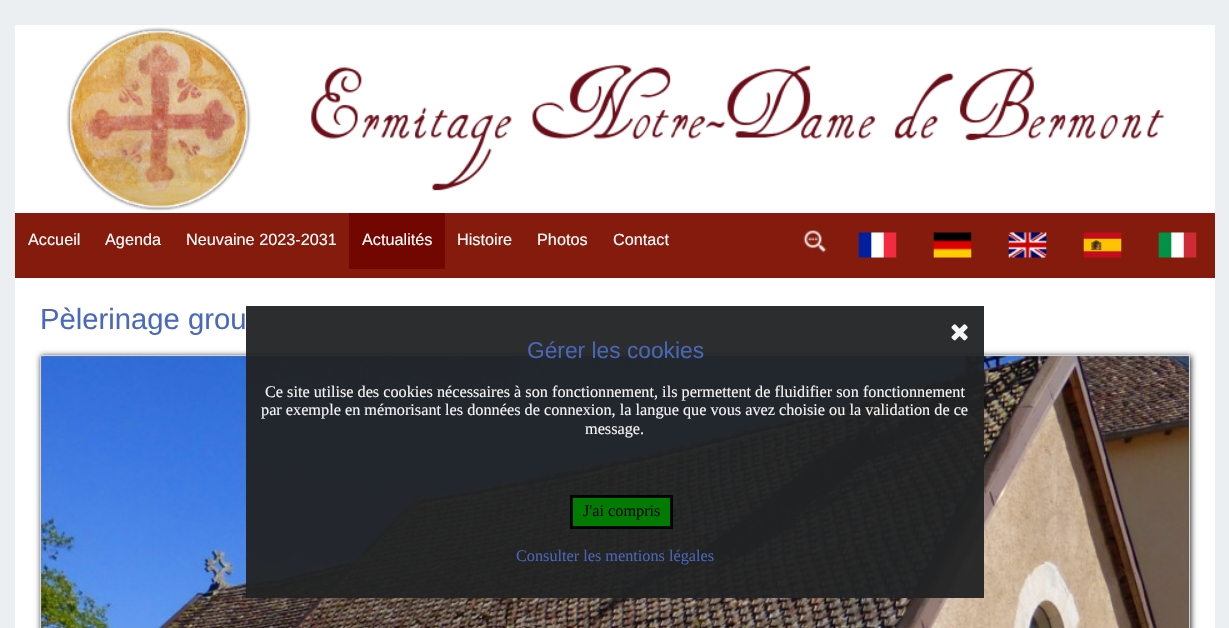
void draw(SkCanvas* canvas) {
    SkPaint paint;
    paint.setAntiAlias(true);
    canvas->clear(0xFFECEFF1);
    paint.setColor(0xFFFFFFFF);
    canvas->drawRect(SkRect::MakeXYWH(15, 25, 1200, 603), paint);
    canvas->drawImageRect(SkImages::DeferredFromEncodedData(SkData::MakeFromFileName("img1.png")), SkRect::MakeXYWH(66, 27, 1098, 184), SkSamplingOptions());
    paint.setColor(0xFF851B0C);
    canvas->drawRect(SkRect::MakeXYWH(15, 213, 1200, 65), paint);
    SkFont font1(fontMgr->matchFamilyStyle("Liberation Sans", SkFontStyle::Normal()), 16.25f);
    font1.setSubpixel(true);
    paint.setColor(0xFFFFFFFF);
    canvas->drawString("Accueil", 28, 245, font1, paint);
    canvas->drawString("Agenda", 105, 245, font1, paint);
    canvas->drawString("Neuvaine 2023-2031", 186, 245, font1, paint);
    paint.setColor(0xFF710700);
    canvas->drawRect(SkRect::MakeXYWH(349, 213, 96, 56), paint);
    paint.setColor(0xFFFFFFFF);
    canvas->drawString("Actualités", 362, 245, font1, paint);
    canvas->drawString("Histoire", 457, 245, font1, paint);
    canvas->drawString("Photos", 537, 245, font1, paint);
    canvas->drawString("Contact", 613, 245, font1, paint);
    canvas->drawImageRect(SkImages::DeferredFromEncodedData(SkData::MakeFromFileName("img2.png")), SkRect::MakeXYWH(803, 230, 24, 23), SkSamplingOptions());
    canvas->drawImageRect(SkImages::DeferredFromEncodedData(SkData::MakeFromFileName("img3.png")), SkRect::MakeXYWH(858, 232, 39, 26), SkSamplingOptions());
    canvas->drawImageRect(SkImages::DeferredFromEncodedData(SkData::MakeFromFileName("img4.png")), SkRect::MakeXYWH(933, 232, 39, 26), SkSamplingOptions());
    canvas->drawImageRect(SkImages::DeferredFromEncodedData(SkData::MakeFromFileName("img5.png")), SkRect::MakeXYWH(1008, 232, 39, 26), SkSamplingOptions());
    canvas->drawImageRect(SkImages::DeferredFromEncodedData(SkData::MakeFromFileName("img6.png")), SkRect::MakeXYWH(1083, 232, 39, 26), SkSamplingOptions());
    canvas->drawImageRect(SkImages::DeferredFromEncodedData(SkData::MakeFromFileName("img7.png")), SkRect::MakeXYWH(1158, 232, 39, 26), SkSamplingOptions());
    SkFont font2(fontMgr->matchFamilyStyle("Liberation Sans", SkFontStyle::Normal()), 29.25f);
    font2.setSubpixel(true);
    paint.setColor(0xFF4A69BD);
    canvas->drawString("Pèlerinage grou", 40, 329, font2, paint);
    paint.setColor(0xFF212223);
    paint.setMaskFilter(SkMaskFilter::MakeBlur(kNormal_SkBlurStyle, 3));
    canvas->drawRect(SkRect::MakeXYWH(41, 356, 1150, 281), paint);
    paint.setMaskFilter(nullptr);
    paint.setStyle(SkPaint::kStroke_Style);
    paint.setStrokeWidth(1);
    paint.setColor(0xFFD3D3D3);
    canvas->drawRect(SkRect::MakeXYWH(40.5f, 355.5f, 1149, 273), paint);
    canvas->drawImageRect(SkImages::DeferredFromEncodedData(SkData::MakeFromFileName("img8.png")), SkRect::MakeXYWH(41, 356, 1148, 272), SkSamplingOptions());
    paint.setStyle(SkPaint::kFill_Style);
    paint.setColor(0xF2212223);
    canvas->drawRect(SkRect::MakeXYWH(246, 306, 738, 292), paint);
    canvas->drawImageRect(SkImages::DeferredFromEncodedData(SkData::MakeFromFileName("img9.png")), SkRect::MakeXYWH(951, 324, 17, 17), SkSamplingOptions());
    SkFont font3(fontMgr->matchFamilyStyle("Liberation Sans", SkFontStyle::Normal()), 22.75f);
    font3.setSubpixel(true);
    paint.setColor(0xFF4866B6);
    canvas->drawString("Gérer les cookies", 527, 358, font3, paint);
    SkFont font4(fontMgr->matchFamilyStyle("Liberation Serif", SkFontStyle::Normal()), 16.25f);
    font4.setSubpixel(true);
    paint.setColor(0xFFF4F4F4);
    canvas->drawString("Ce site utilise des cookies nécessaires à son fonctionnement, ils permettent de fluidifier son fonctionnement", 265, 397, font4, paint);
    canvas->drawString("par exemple en mémorisant les données de connexion, la langue que vous avez choisie ou la validation de ce", 261, 415, font4, paint);
    canvas->drawString("message.", 585, 434, font4, paint);
    paint.setColor(0xF2008000);
    canvas->drawRect(SkRect::MakeXYWH(571.5f, 496.5f, 100, 31), paint);
    paint.setStyle(SkPaint::kStroke_Style);
    paint.setStrokeWidth(3);
    paint.setColor(0xFF000600);
    canvas->drawRect(SkRect::MakeXYWH(571.5f, 496.5f, 100, 31), paint);
    paint.setStyle(SkPaint::kFill_Style);
    canvas->drawString("J'ai compris", 583, 516, font4, paint);
    paint.setColor(0xFF4866B6);
    canvas->drawString("Consulter les mentions légales", 516, 561, font4, paint);
}
